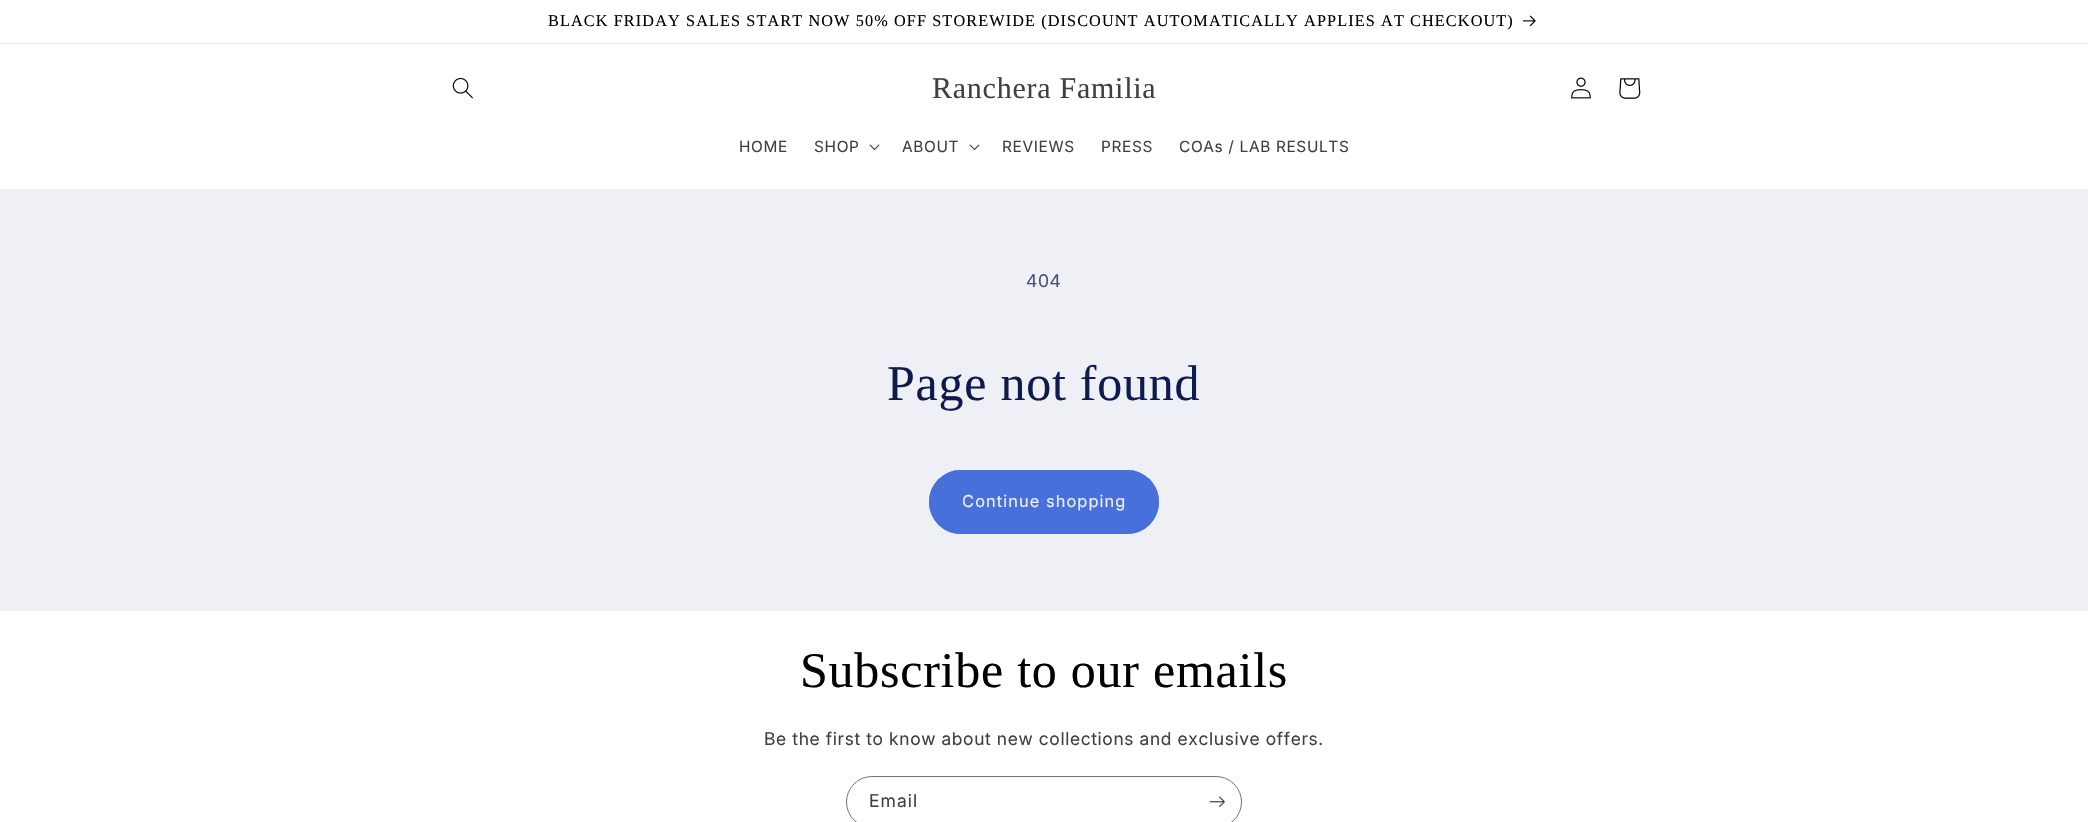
void draw(SkCanvas* canvas) {
    SkPaint paint;
    paint.setAntiAlias(true);
    auto spacedText = [&](const char* s, float x, float y, const SkFont& font, const SkPaint& ink, float letter, float word) {
        std::vector<SkGlyphID> glyphs(font.countText(s, strlen(s), SkTextEncoding::kUTF8));
        std::vector<float> xs(glyphs.size());
        font.textToGlyphs(s, strlen(s), SkTextEncoding::kUTF8, glyphs);
        font.getXPos(glyphs, xs, x);
        float extra = 0;
        for (size_t i = 0; i < glyphs.size(); i++) {
            xs[i] += extra;
            extra += letter + word * (glyphs[i] == font.unicharToGlyph(' '));
        }
        canvas->drawTextBlob(SkTextBlob::MakeFromPosHGlyphs(glyphs, xs, y, font), 0, 0, ink);
    };
    canvas->clear(0xFFEFF0F5);
    paint.setColor(0xFFFFFFFF);
    canvas->drawRect(SkRect::MakeXYWH(0, 0, 2088, 43), paint);
    paint.setColor(0xFFEBEBEB);
    canvas->drawRect(SkRect::MakeXYWH(0, 43, 2088, 1), paint);
    SkFont font1(fontMgr->matchFamilyStyle("Liberation Serif", SkFontStyle::Normal()), 16.25f);
    font1.setSubpixel(true);
    paint.setColor(0xFF000000);
    spacedText("BLACK FRIDAY SALES START NOW 50% OFF STOREWIDE (DISCOUNT AUTOMATICALLY APPLIES AT CHECKOUT)", 548, 26, font1, paint, 1.1f, 0);
    canvas->drawImageRect(SkImages::DeferredFromEncodedData(SkData::MakeFromFileName("img1.png")), SkRect::MakeXYWH(1523, 15, 13, 12), SkSamplingOptions());
    paint.setColor(0xFFFFFFFF);
    canvas->drawRect(SkRect::MakeXYWH(0, 44, 2088, 145), paint);
    canvas->drawImageRect(SkImages::DeferredFromEncodedData(SkData::MakeFromFileName("img2.png")), SkRect::MakeXYWH(452, 77, 21, 22), SkSamplingOptions());
    SkFont font2(fontMgr->matchFamilyStyle("Liberation Serif", SkFontStyle::Normal()), 30);
    font2.setSubpixel(true);
    paint.setColor(0xFF404040);
    spacedText("Ranchera Familia", 932, 98, font2, paint, 0.75f, 0);
    canvas->drawImageRect(SkImages::DeferredFromEncodedData(SkData::MakeFromFileName("img3.png")), SkRect::MakeXYWH(1571, 77, 20, 22), SkSamplingOptions());
    canvas->drawImageRect(SkImages::DeferredFromEncodedData(SkData::MakeFromFileName("img4.png")), SkRect::MakeXYWH(1619, 78, 22, 21), SkSamplingOptions());
    SkFont font3(fontMgr->matchFamilyStyle("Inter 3", SkFontStyle::Normal()), 15.4f);
    font3.setSubpixel(true);
    spacedText("HOME", 739, 152, font3, paint, 0.65f, 0);
    spacedText("SHOP", 814, 152, font3, paint, 0.65f, 0);
    canvas->drawImageRect(SkImages::DeferredFromEncodedData(SkData::MakeFromFileName("img5.png")), SkRect::MakeXYWH(869, 144, 11, 6), SkSamplingOptions());
    spacedText("ABOUT", 902, 152, font3, paint, 0.65f, 0);
    canvas->drawImageRect(SkImages::DeferredFromEncodedData(SkData::MakeFromFileName("img5.png")), SkRect::MakeXYWH(969, 144, 11, 6), SkSamplingOptions());
    spacedText("REVIEWS", 1002, 152, font3, paint, 0.65f, 0);
    spacedText("PRESS", 1101, 152, font3, paint, 0.65f, 0);
    spacedText("COAs / LAB RESULTS", 1179, 152, font3, paint, 0.65f, 0);
    SkFont font4(fontMgr->matchFamilyStyle("Inter", SkFontStyle::Normal()), 17.6f);
    font4.setSubpixel(true);
    paint.setColor(0xFF465077);
    spacedText("404", 1026, 287, font4, paint, 0.65f, 0);
    SkFont font5(fontMgr->matchFamilyStyle("Liberation Serif", SkFontStyle::Normal()), 50);
    font5.setSubpixel(true);
    paint.setColor(0xFF0E1B4D);
    spacedText("Page not found", 887, 400, font5, paint, 0.75f, 0);
    paint.setColor(0xFF4770DB);
    canvas->drawRoundRect(SkRect::MakeXYWH(929, 470, 230, 64), 32, 32, paint);
    paint.setStyle(SkPaint::kStroke_Style);
    paint.setStrokeWidth(7);
    canvas->drawRoundRect(SkRect::MakeXYWH(932.5f, 473.5f, 223, 57), 28.5f, 28.5f, paint);
    SkFont font6(fontMgr->matchFamilyStyle("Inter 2", SkFontStyle::Normal()), 16.5f);
    font6.setSubpixel(true);
    paint.setStyle(SkPaint::kFill_Style);
    paint.setColor(0xFFEFF0F5);
    spacedText("Continue shopping", 962, 507, font6, paint, 1.1f, 0);
    paint.setColor(0xFFFFFFFF);
    canvas->drawRect(SkRect::MakeXYWH(0, 611, 2088, 211), paint);
    paint.setColor(0xFF000000);
    spacedText("Subscribe to our emails", 800, 687, font5, paint, 0.75f, 0);
    paint.setColor(0xFF404040);
    spacedText("Be the first to know about new collections and exclusive offers.", 764, 745, font4, paint, 0.65f, 0);
    paint.setStyle(SkPaint::kStroke_Style);
    paint.setStrokeWidth(1);
    paint.setColor(0xFF737373);
    canvas->drawRoundRect(SkRect::MakeXYWH(846.5f, 776.5f, 395, 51), 25.5f, 25.5f, paint);
    paint.setStyle(SkPaint::kFill_Style);
    paint.setColor(0xFF404040);
    spacedText("Email", 869, 807, font4, paint, 1.1f, 0);
    canvas->drawImageRect(SkImages::DeferredFromEncodedData(SkData::MakeFromFileName("img6.png")), SkRect::MakeXYWH(1209, 796, 16, 11), SkSamplingOptions());
}
